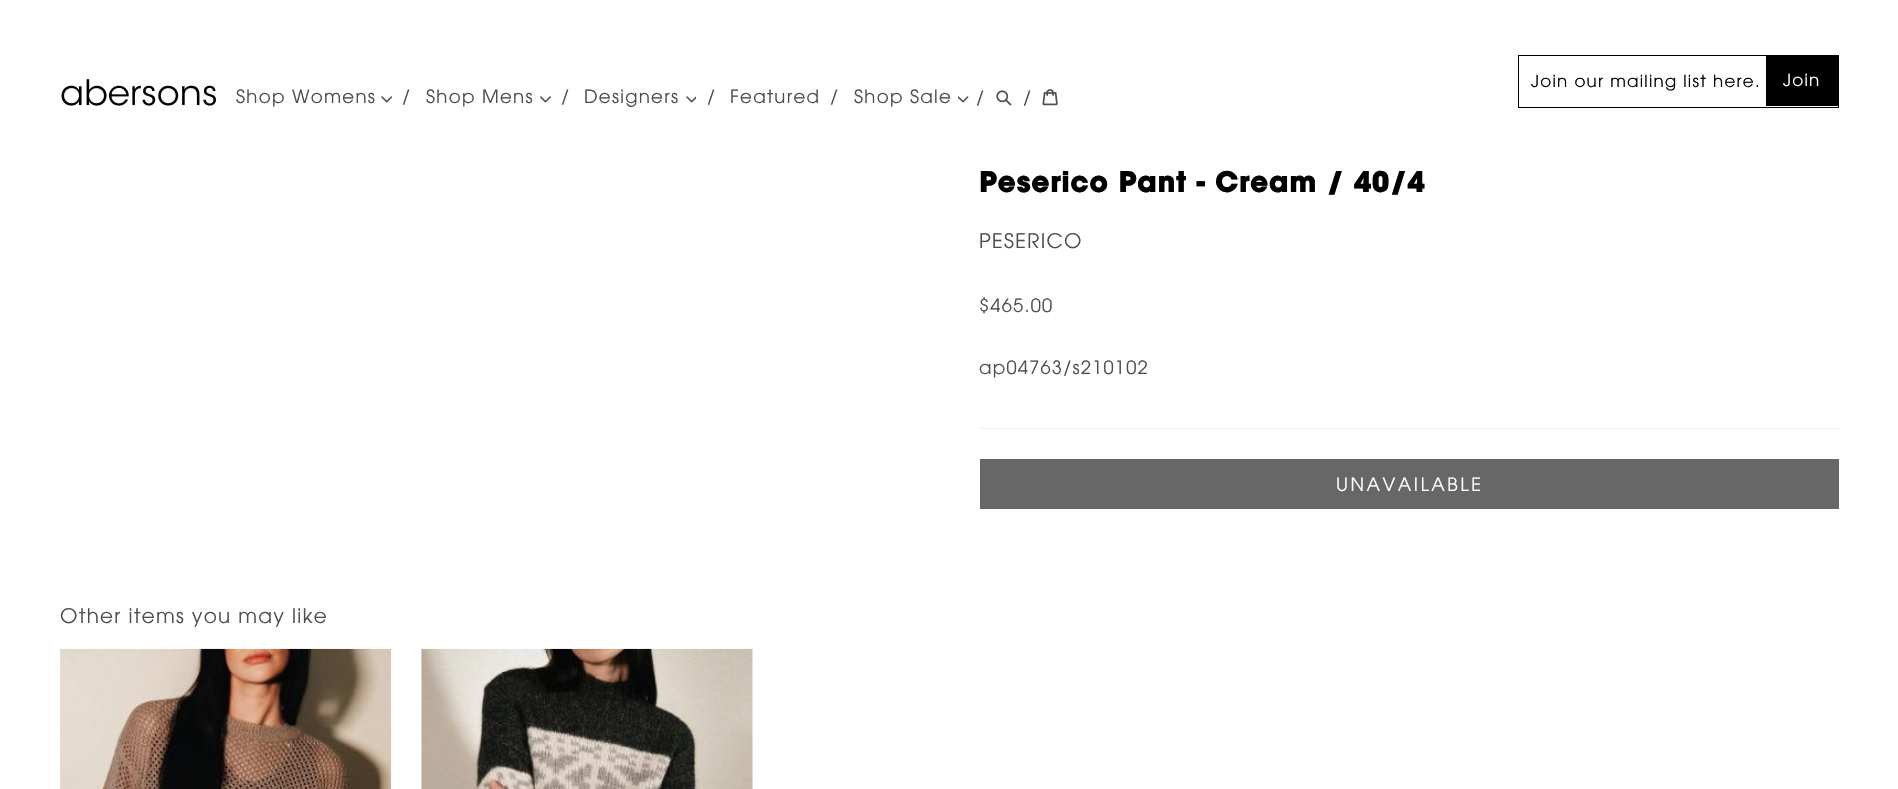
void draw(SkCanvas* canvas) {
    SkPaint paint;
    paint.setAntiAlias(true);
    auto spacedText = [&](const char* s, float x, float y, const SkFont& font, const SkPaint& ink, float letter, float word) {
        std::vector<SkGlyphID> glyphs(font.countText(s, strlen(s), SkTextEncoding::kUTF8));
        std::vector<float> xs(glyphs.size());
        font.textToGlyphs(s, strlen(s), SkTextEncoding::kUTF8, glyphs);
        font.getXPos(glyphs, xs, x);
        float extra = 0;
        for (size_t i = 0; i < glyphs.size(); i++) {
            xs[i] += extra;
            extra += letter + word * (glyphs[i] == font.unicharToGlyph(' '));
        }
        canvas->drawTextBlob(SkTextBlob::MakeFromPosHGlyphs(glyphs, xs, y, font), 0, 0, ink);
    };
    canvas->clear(0xFFFFFFFF);
    canvas->drawImageRect(SkImages::DeferredFromEncodedData(SkData::MakeFromFileName("img1.png")), SkRect::MakeXYWH(61, 79, 155, 27), SkSamplingOptions());
    paint.setStyle(SkPaint::kStroke_Style);
    paint.setStrokeWidth(1);
    paint.setColor(0xFF000000);
    canvas->drawRect(SkRect::MakeXYWH(1518.5f, 55.5f, 320, 52), paint);
    SkFont font1(fontMgr->matchFamilyStyle("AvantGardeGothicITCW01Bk", SkFontStyle::Normal()), 16.7f);
    font1.setSubpixel(true);
    paint.setStyle(SkPaint::kFill_Style);
    spacedText("Join our mailing list here.", 1531, 87, font1, paint, 1.25f, 0);
    canvas->drawRect(SkRect::MakeXYWH(1766, 56, 72, 50), paint);
    paint.setColor(0xFFFFFFFF);
    spacedText("Join", 1783, 86, font1, paint, 1.25f, 0);
    SkFont font2(fontMgr->matchFamilyStyle("AvantGardeGothicITCW01Bk", SkFontStyle::Normal()), 18.25f);
    font2.setSubpixel(true);
    paint.setColor(0xFF4D4D4D);
    spacedText("Shop Womens", 236, 103, font2, paint, 1.25f, 0);
    canvas->drawImageRect(SkImages::DeferredFromEncodedData(SkData::MakeFromFileName("img2.png")), SkRect::MakeXYWH(381, 96, 12, 7), SkSamplingOptions());
    spacedText("/", 402, 103, font2, paint, 1.25f, 0);
    spacedText("Shop Mens", 426, 103, font2, paint, 1.25f, 0);
    canvas->drawImageRect(SkImages::DeferredFromEncodedData(SkData::MakeFromFileName("img3.png")), SkRect::MakeXYWH(540, 96, 11, 7), SkSamplingOptions());
    spacedText("/", 561, 103, font2, paint, 1.25f, 0);
    spacedText("Designers", 584, 103, font2, paint, 1.25f, 0);
    canvas->drawImageRect(SkImages::DeferredFromEncodedData(SkData::MakeFromFileName("img4.png")), SkRect::MakeXYWH(686, 96, 10, 7), SkSamplingOptions());
    spacedText("/", 707, 103, font2, paint, 1.25f, 0);
    spacedText("Featured", 730, 103, font2, paint, 1.25f, 0);
    spacedText("/", 830, 103, font2, paint, 1.25f, 0);
    spacedText("Shop Sale", 854, 103, font2, paint, 1.25f, 0);
    canvas->drawImageRect(SkImages::DeferredFromEncodedData(SkData::MakeFromFileName("img5.png")), SkRect::MakeXYWH(958, 96, 11, 7), SkSamplingOptions());
    spacedText("/", 976, 104, font2, paint, 1.25f, 0);
    canvas->drawImageRect(SkImages::DeferredFromEncodedData(SkData::MakeFromFileName("img6.png")), SkRect::MakeXYWH(996, 90, 16, 16), SkSamplingOptions());
    spacedText("/", 1023, 104, font2, paint, 1.25f, 0);
    canvas->drawImageRect(SkImages::DeferredFromEncodedData(SkData::MakeFromFileName("img7.png")), SkRect::MakeXYWH(1042, 89, 16, 17), SkSamplingOptions());
    SkFont font3(fontMgr->matchFamilyStyle("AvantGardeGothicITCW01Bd", SkFontStyle::Bold()), 27.25f);
    font3.setSubpixel(true);
    paint.setColor(0xFF000000);
    spacedText("Peserico Pant - Cream / 40/4", 979, 192, font3, paint, 1.25f, 0);
    SkFont font4(fontMgr->matchFamilyStyle("AvantGardeGothicITCW01Bk", SkFontStyle::Normal()), 20);
    font4.setSubpixel(true);
    paint.setColor(0xFF4D4D4D);
    spacedText("PESERICO", 979, 248, font4, paint, 1.25f, 0);
    spacedText("$465.00", 979, 312, font2, paint, 1.25f, 0);
    spacedText("ap04763/s210102", 979, 374, font2, paint, 1.25f, 0);
    paint.setColor(0xFFF3F2EF);
    canvas->drawRect(SkRect::MakeXYWH(980, 428, 859, 1), paint);
    paint.setColor(0xFF676767);
    canvas->drawRect(SkRect::MakeXYWH(980, 459, 859, 50), paint);
    paint.setColor(0xFFFFFFFF);
    spacedText("UNAVAILABLE", 1336, 491, font2, paint, 2.5f, 0);
    paint.setColor(0xFF4D4D4D);
    spacedText("Other items you may like", 60, 623, font4, paint, 1.25f, 0);
    canvas->drawImageRect(SkImages::DeferredFromEncodedData(SkData::MakeFromFileName("img8.png")), SkRect::MakeXYWH(60, 648, 332, 141), SkSamplingOptions());
    canvas->drawImageRect(SkImages::DeferredFromEncodedData(SkData::MakeFromFileName("img9.png")), SkRect::MakeXYWH(421, 648, 332, 141), SkSamplingOptions());
}
